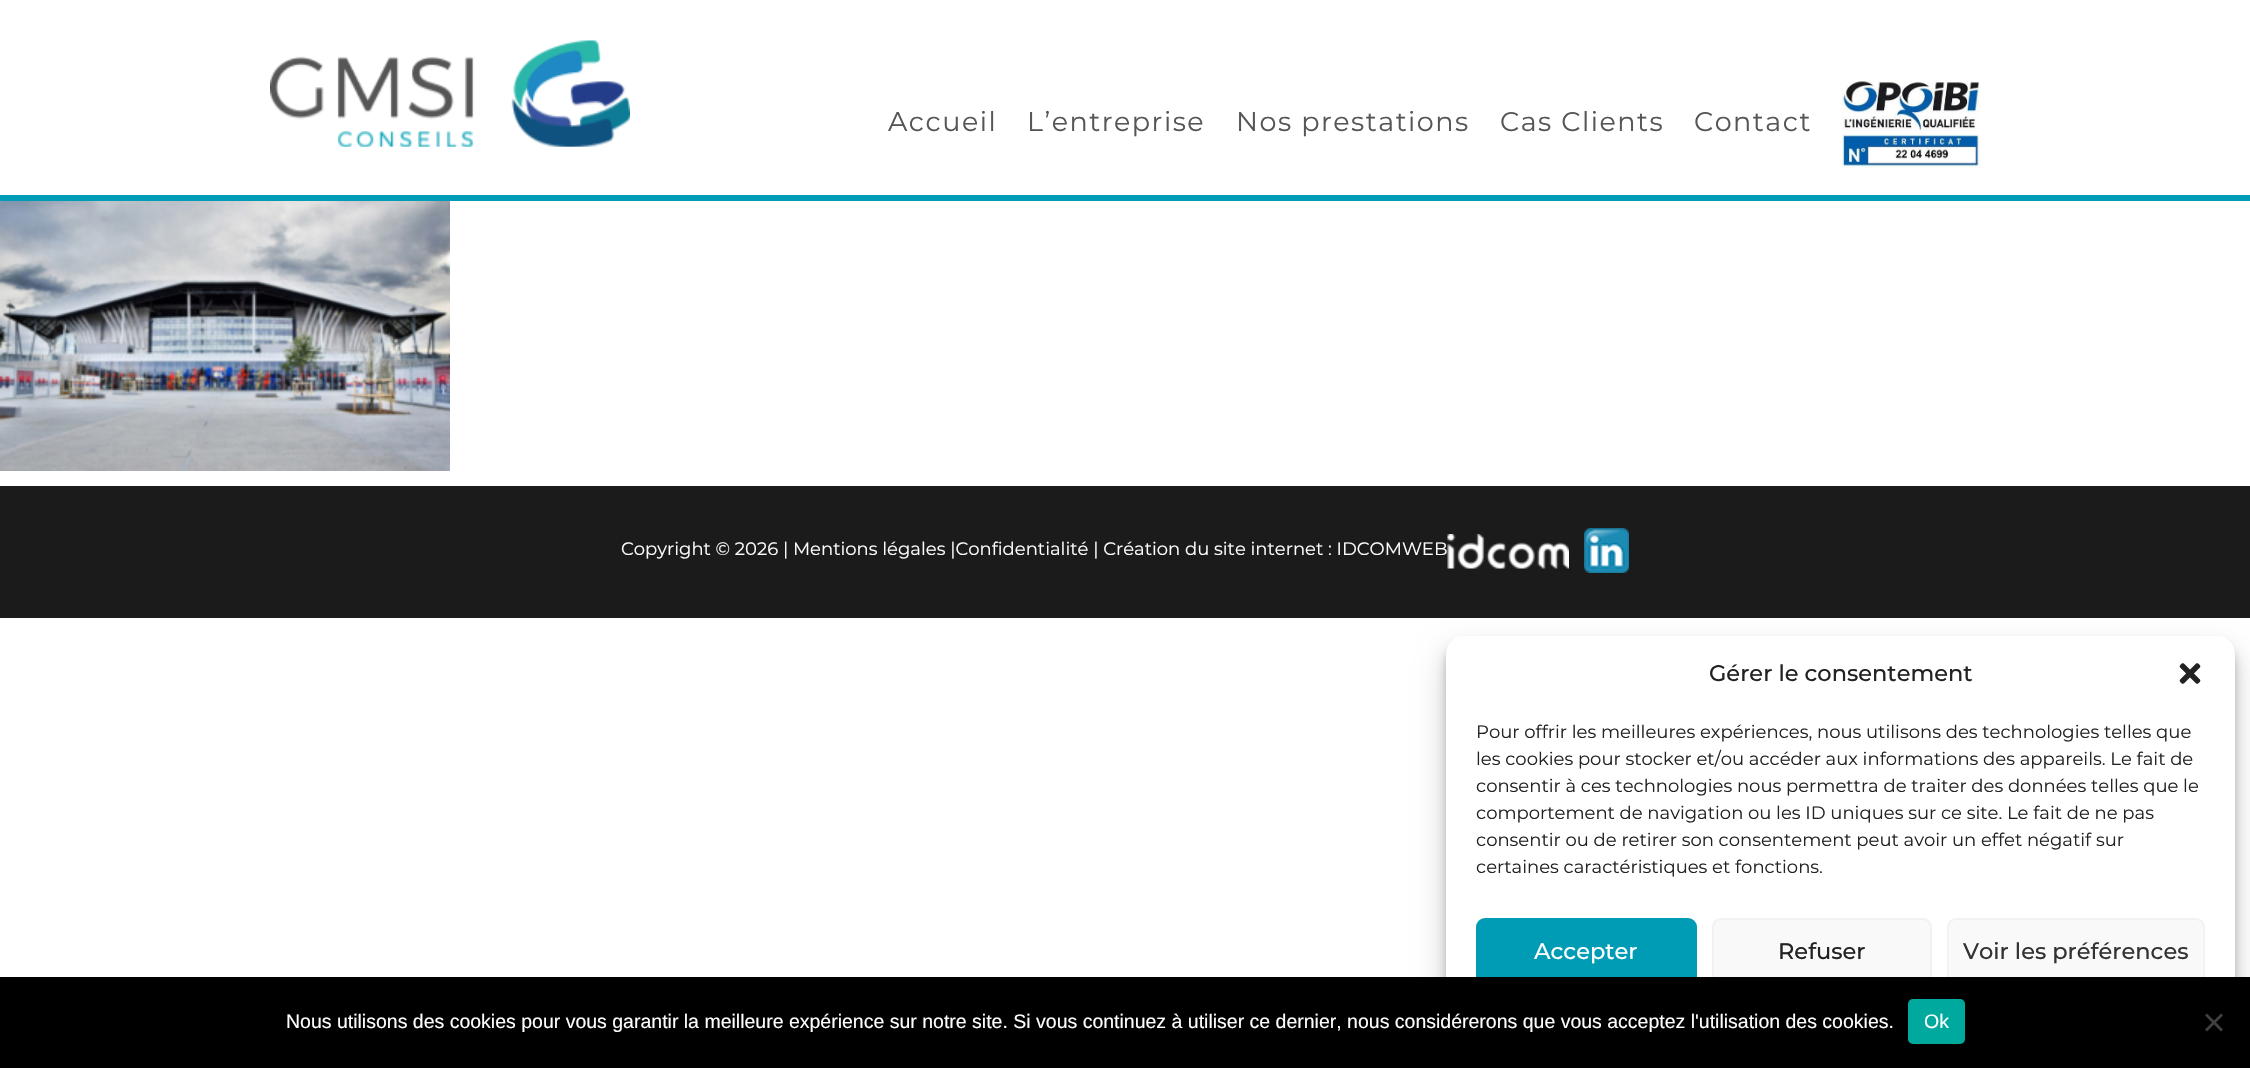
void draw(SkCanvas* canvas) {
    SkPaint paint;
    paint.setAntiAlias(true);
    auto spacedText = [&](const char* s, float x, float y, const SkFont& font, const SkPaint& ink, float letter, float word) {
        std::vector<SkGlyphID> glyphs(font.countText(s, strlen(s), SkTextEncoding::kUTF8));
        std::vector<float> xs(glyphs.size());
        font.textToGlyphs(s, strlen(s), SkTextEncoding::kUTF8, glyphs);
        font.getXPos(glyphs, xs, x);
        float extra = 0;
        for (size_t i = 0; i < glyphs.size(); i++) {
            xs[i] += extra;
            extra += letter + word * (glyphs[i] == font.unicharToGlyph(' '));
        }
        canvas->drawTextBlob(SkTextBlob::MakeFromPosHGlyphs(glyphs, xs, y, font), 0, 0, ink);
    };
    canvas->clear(0xFFFFFFFF);
    paint.setColor(0xFF009BB4);
    canvas->drawRect(SkRect::MakeXYWH(0, 195, 2250, 6), paint);
    canvas->drawImageRect(SkImages::DeferredFromEncodedData(SkData::MakeFromFileName("img1.png")), SkRect::MakeXYWH(270, 40, 360, 107), SkSamplingOptions());
    SkFont font1(fontMgr->matchFamilyStyle("Montserrat", SkFontStyle::Normal()), 27);
    font1.setSubpixel(true);
    paint.setColor(0xFF575656);
    spacedText("Accueil", 888, 131, font1, paint, 1.5f, 0);
    spacedText("L’entreprise", 1027, 131, font1, paint, 1.5f, 0);
    spacedText("Nos prestations", 1236, 131, font1, paint, 1.5f, 0);
    spacedText("Cas Clients", 1500, 131, font1, paint, 1.5f, 0);
    spacedText("Contact", 1694, 131, font1, paint, 1.5f, 0);
    canvas->drawImageRect(SkImages::DeferredFromEncodedData(SkData::MakeFromFileName("img2.png")), SkRect::MakeXYWH(1842, 81, 138, 87), SkSamplingOptions());
    canvas->drawImageRect(SkImages::DeferredFromEncodedData(SkData::MakeFromFileName("img3.png")), SkRect::MakeXYWH(0, 201, 450, 270), SkSamplingOptions());
    paint.setColor(0xFF1B1B1B);
    canvas->drawRect(SkRect::MakeXYWH(0, 486, 2250, 132), paint);
    SkFont font2(fontMgr->matchFamilyStyle("Montserrat", SkFontStyle::Normal()), 18);
    font2.setSubpixel(true);
    paint.setColor(0xFFFFFFFF);
    canvas->drawString("Copyright © 2026 | Mentions légales |Confidentialité | Création du site internet : IDCOMWEB", 621, 555, font2, paint);
    canvas->drawImageRect(SkImages::DeferredFromEncodedData(SkData::MakeFromFileName("img4.png")), SkRect::MakeXYWH(1447, 534, 122, 35), SkSamplingOptions());
    canvas->drawImageRect(SkImages::DeferredFromEncodedData(SkData::MakeFromFileName("img5.png")), SkRect::MakeXYWH(1584, 528, 45, 45), SkSamplingOptions());
    paint.setColor(0x3B000000);
    paint.setMaskFilter(SkMaskFilter::MakeBlur(kNormal_SkBlurStyle, 4.5f));
    canvas->drawRoundRect(SkRect::MakeXYWH(1446, 645, 789, 417), 18, 18, paint);
    paint.setMaskFilter(nullptr);
    paint.setColor(0x30000000);
    paint.setMaskFilter(SkMaskFilter::MakeBlur(kNormal_SkBlurStyle, 15));
    canvas->drawRoundRect(SkRect::MakeXYWH(1446, 651, 789, 417), 18, 18, paint);
    paint.setMaskFilter(nullptr);
    paint.setColor(0xFFFFFFFF);
    canvas->drawRoundRect(SkRect::MakeXYWH(1446, 636, 789, 417), 18, 18, paint);
    SkFont font3(fontMgr->matchFamilyStyle("Montserrat", SkFontStyle(500, SkFontStyle::kNormal_Width, SkFontStyle::kUpright_Slant)), 22.5f);
    font3.setSubpixel(true);
    paint.setColor(0xFF222222);
    canvas->drawString("Gérer le consentement", 1709, 681, font3, paint);
    canvas->drawImageRect(SkImages::DeferredFromEncodedData(SkData::MakeFromFileName("img6.png")), SkRect::MakeXYWH(2179, 663, 22, 21), SkSamplingOptions());
    canvas->drawString("Pour offrir les meilleures expériences, nous utilisons des technologies telles que", 1476, 738, font2, paint);
    canvas->drawString("les cookies pour stocker et/ou accéder aux informations des appareils. Le fait de", 1476, 765, font2, paint);
    canvas->drawString("consentir à ces technologies nous permettra de traiter des données telles que le", 1476, 792, font2, paint);
    canvas->drawString("comportement de navigation ou les ID uniques sur ce site. Le fait de ne pas", 1476, 819, font2, paint);
    canvas->drawString("consentir ou de retirer son consentement peut avoir un effet négatif sur", 1476, 846, font2, paint);
    canvas->drawString("certaines caractéristiques et fonctions.", 1476, 873, font2, paint);
    paint.setColor(0xFF009BB4);
    canvas->drawRoundRect(SkRect::MakeXYWH(1477, 919, 219, 66), 8, 8, paint);
    paint.setStyle(SkPaint::kStroke_Style);
    paint.setStrokeWidth(2);
    canvas->drawRoundRect(SkRect::MakeXYWH(1477, 919, 219, 66), 8, 8, paint);
    paint.setStyle(SkPaint::kFill_Style);
    paint.setColor(0xFFFFFFFF);
    canvas->drawString("Accepter", 1534, 959, font3, paint);
    paint.setColor(0xFFF9F9F9);
    canvas->drawRoundRect(SkRect::MakeXYWH(1713, 919, 218, 66), 8, 8, paint);
    paint.setStyle(SkPaint::kStroke_Style);
    paint.setColor(0xFFF2F2F2);
    canvas->drawRoundRect(SkRect::MakeXYWH(1713, 919, 218, 66), 8, 8, paint);
    paint.setStyle(SkPaint::kFill_Style);
    paint.setColor(0xFF222222);
    canvas->drawString("Refuser", 1778, 959, font3, paint);
    paint.setColor(0xFFF9F9F9);
    canvas->drawRoundRect(SkRect::MakeXYWH(1948, 919, 256, 66), 8, 8, paint);
    paint.setStyle(SkPaint::kStroke_Style);
    paint.setColor(0xFFF2F2F2);
    canvas->drawRoundRect(SkRect::MakeXYWH(1948, 919, 256, 66), 8, 8, paint);
    paint.setStyle(SkPaint::kFill_Style);
    paint.setColor(0xFF333333);
    canvas->drawString("Voir les préférences", 1963, 959, font3, paint);
    paint.setColor(0xFF000000);
    canvas->drawRect(SkRect::MakeXYWH(0, 977, 2250, 91), paint);
    SkFont font4(fontMgr->matchFamilyStyle("Liberation Sans", SkFontStyle::Normal()), 19.5f);
    font4.setSubpixel(true);
    paint.setColor(0xFFFFFFFF);
    canvas->drawString("Nous utilisons des cookies pour vous garantir la meilleure expérience sur notre site. Si vous continuez à utiliser ce dernier, nous considérerons que vous acceptez l'utilisation des cookies.", 286, 1028, font4, paint);
    paint.setColor(0xFF00A99D);
    canvas->drawRoundRect(SkRect::MakeXYWH(1908, 999, 57, 45), 5, 5, paint);
    paint.setColor(0xFFFFFFFF);
    canvas->drawString("Ok", 1924, 1028, font4, paint);
    paint.setColor(0xFF404040);
    canvas->drawPath(SkPathBuilder().moveTo(2221, 1013.5f).lineTo(2223, 1015.5f).lineTo(2207, 1031.5f).lineTo(2205, 1029.5f).close().detach(), paint);
    canvas->drawPath(SkPathBuilder().moveTo(2205, 1015.5f).lineTo(2207, 1013.5f).lineTo(2223, 1029.5f).lineTo(2221, 1031.5f).close().detach(), paint);
}
